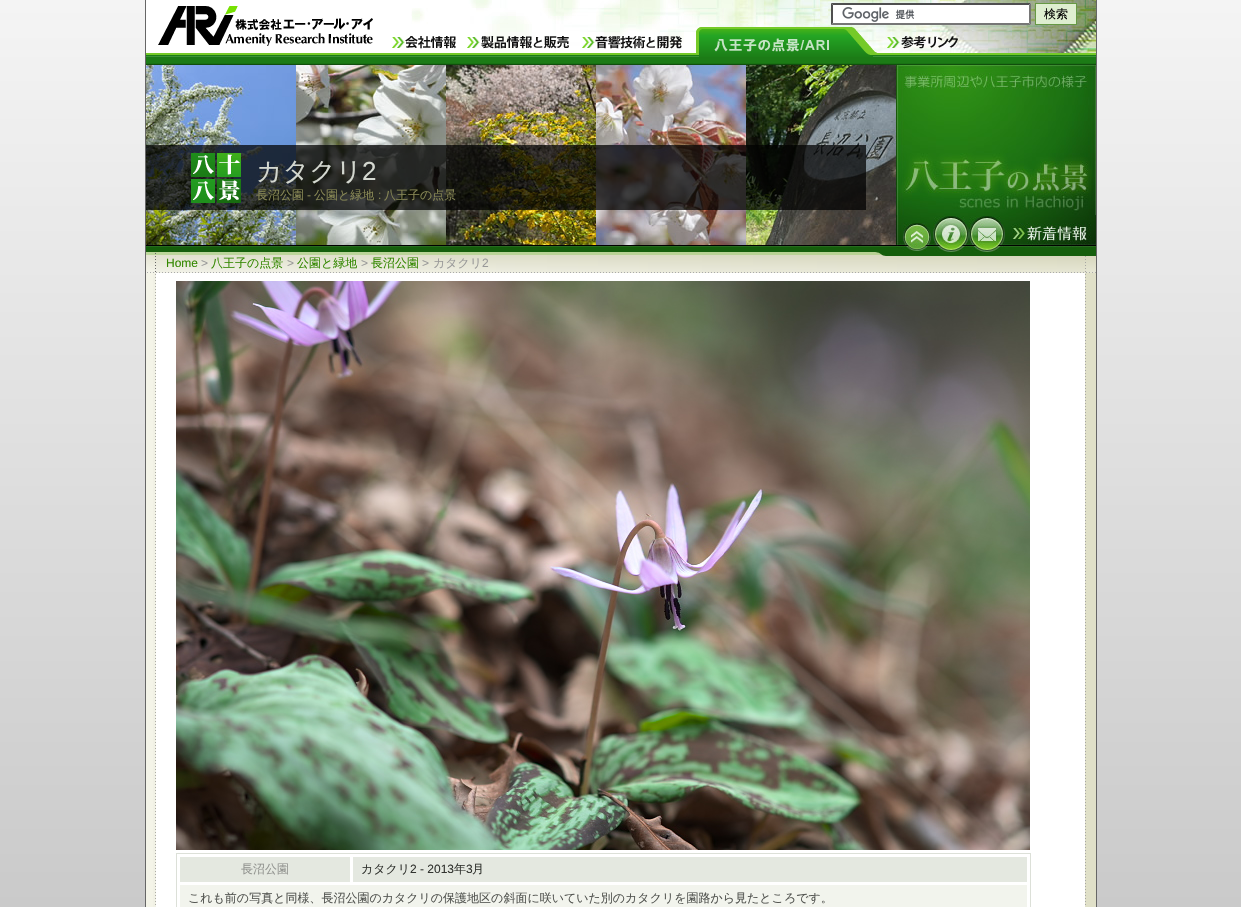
void draw(SkCanvas* canvas) {
    SkPaint paint;
    paint.setAntiAlias(true);
    canvas->clear(0xFFFFFFFF);
    canvas->drawImageRect(SkImages::DeferredFromEncodedData(SkData::MakeFromFileName("img1.png")), SkRect::MakeXYWH(0, 0, 1241, 907), SkSamplingOptions());
    canvas->drawImageRect(SkImages::DeferredFromEncodedData(SkData::MakeFromFileName("img2.png")), SkRect::MakeXYWH(145, 0, 952, 907), SkSamplingOptions());
    canvas->drawImageRect(SkImages::DeferredFromEncodedData(SkData::MakeFromFileName("img4.png")), SkRect::MakeXYWH(411, 0, 685, 53), SkSamplingOptions());
    paint.setColor(0xFFFFFFFF);
    canvas->drawRect(SkRect::MakeXYWH(831, 3, 200, 22), paint);
    canvas->drawImageRect(SkImages::DeferredFromEncodedData(SkData::MakeFromFileName("img3.png")), SkRect::MakeXYWH(842, 7, 73, 15), SkSamplingOptions());
    paint.setColor(0xFF4F4F4F);
    canvas->drawPath(SkPathBuilder().moveTo(831, 3).lineTo(1031, 3).lineTo(1029, 5).lineTo(833, 5).close().detach(), paint);
    paint.setColor(0xFF767676);
    canvas->drawPath(SkPathBuilder().moveTo(1031, 3).lineTo(1031, 25).lineTo(1029, 23).lineTo(1029, 5).close().detach(), paint);
    canvas->drawPath(SkPathBuilder().moveTo(1031, 25).lineTo(831, 25).lineTo(833, 23).lineTo(1029, 23).close().detach(), paint);
    paint.setColor(0xFF4F4F4F);
    canvas->drawPath(SkPathBuilder().moveTo(831, 25).lineTo(831, 3).lineTo(833, 5).lineTo(833, 23).close().detach(), paint);
    paint.setColor(0xFFDEEED0);
    canvas->drawRect(SkRect::MakeXYWH(1035.5f, 3.5f, 41, 21), paint);
    paint.setStyle(SkPaint::kStroke_Style);
    paint.setStrokeWidth(1);
    paint.setColor(0xFF669944);
    canvas->drawRect(SkRect::MakeXYWH(1035.5f, 3.5f, 41, 21), paint);
    SkFont font1(fontMgr->matchFamilyStyle("WenQuanYi Zen Hei", SkFontStyle(500, SkFontStyle::kNormal_Width, SkFontStyle::kUpright_Slant)), 12);
    font1.setSubpixel(true);
    paint.setStyle(SkPaint::kFill_Style);
    paint.setColor(0xFF000000);
    canvas->drawString("検索", 1044, 18, font1, paint);
    paint.setColor(0xFFFFFFFF);
    canvas->drawRect(SkRect::MakeXYWH(146, 0, 265, 53), paint);
    canvas->drawImageRect(SkImages::DeferredFromEncodedData(SkData::MakeFromFileName("img5.png")), SkRect::MakeXYWH(158, 6, 215, 40), SkSamplingOptions());
    canvas->drawImageRect(SkImages::DeferredFromEncodedData(SkData::MakeFromFileName("img6.png")), SkRect::MakeXYWH(146, 53, 950, 4), SkSamplingOptions());
    canvas->drawImageRect(SkImages::DeferredFromEncodedData(SkData::MakeFromFileName("img7.png")), SkRect::MakeXYWH(405, 36, 51, 13), SkSamplingOptions());
    canvas->drawImageRect(SkImages::DeferredFromEncodedData(SkData::MakeFromFileName("img8.png")), SkRect::MakeXYWH(392, 37, 13, 11), SkSamplingOptions());
    canvas->drawImageRect(SkImages::DeferredFromEncodedData(SkData::MakeFromFileName("img9.png")), SkRect::MakeXYWH(481, 36, 88, 13), SkSamplingOptions());
    canvas->drawImageRect(SkImages::DeferredFromEncodedData(SkData::MakeFromFileName("img8.png")), SkRect::MakeXYWH(467, 37, 13, 11), SkSamplingOptions());
    canvas->drawImageRect(SkImages::DeferredFromEncodedData(SkData::MakeFromFileName("img10.png")), SkRect::MakeXYWH(595, 36, 87, 13), SkSamplingOptions());
    canvas->drawImageRect(SkImages::DeferredFromEncodedData(SkData::MakeFromFileName("img11.png")), SkRect::MakeXYWH(582, 37, 13, 11), SkSamplingOptions());
    canvas->drawImageRect(SkImages::DeferredFromEncodedData(SkData::MakeFromFileName("img12.png")), SkRect::MakeXYWH(696, 27, 182, 30), SkSamplingOptions());
    canvas->drawImageRect(SkImages::DeferredFromEncodedData(SkData::MakeFromFileName("img13.png")), SkRect::MakeXYWH(714, 38, 115, 14), SkSamplingOptions());
    canvas->drawImageRect(SkImages::DeferredFromEncodedData(SkData::MakeFromFileName("img14.png")), SkRect::MakeXYWH(901, 36, 58, 13), SkSamplingOptions());
    canvas->drawImageRect(SkImages::DeferredFromEncodedData(SkData::MakeFromFileName("img15.png")), SkRect::MakeXYWH(887, 37, 13, 11), SkSamplingOptions());
    paint.setColor(0xFF1C7B16);
    canvas->drawRect(SkRect::MakeXYWH(146, 57, 950, 6), paint);
    canvas->drawImageRect(SkImages::DeferredFromEncodedData(SkData::MakeFromFileName("img16.png")), SkRect::MakeXYWH(146, 63, 950, 189), SkSamplingOptions());
    canvas->drawImageRect(SkImages::DeferredFromEncodedData(SkData::MakeFromFileName("img17.png")), SkRect::MakeXYWH(146, 65, 150, 180), SkSamplingOptions());
    canvas->drawImageRect(SkImages::DeferredFromEncodedData(SkData::MakeFromFileName("img18.png")), SkRect::MakeXYWH(296, 65, 150, 180), SkSamplingOptions());
    canvas->drawImageRect(SkImages::DeferredFromEncodedData(SkData::MakeFromFileName("img19.png")), SkRect::MakeXYWH(446, 65, 150, 180), SkSamplingOptions());
    canvas->drawImageRect(SkImages::DeferredFromEncodedData(SkData::MakeFromFileName("img20.png")), SkRect::MakeXYWH(596, 65, 150, 180), SkSamplingOptions());
    canvas->drawImageRect(SkImages::DeferredFromEncodedData(SkData::MakeFromFileName("img21.png")), SkRect::MakeXYWH(746, 65, 150, 180), SkSamplingOptions());
    canvas->drawImageRect(SkImages::DeferredFromEncodedData(SkData::MakeFromFileName("img22.png")), SkRect::MakeXYWH(896, 65, 200, 150), SkSamplingOptions());
    canvas->drawImageRect(SkImages::DeferredFromEncodedData(SkData::MakeFromFileName("img23.png")), SkRect::MakeXYWH(896, 215, 200, 34), SkSamplingOptions());
    canvas->drawImageRect(SkImages::DeferredFromEncodedData(SkData::MakeFromFileName("img24.png")), SkRect::MakeXYWH(903, 223, 28, 28), SkSamplingOptions());
    canvas->drawImageRect(SkImages::DeferredFromEncodedData(SkData::MakeFromFileName("img25.png")), SkRect::MakeXYWH(933, 216, 36, 36), SkSamplingOptions());
    canvas->drawImageRect(SkImages::DeferredFromEncodedData(SkData::MakeFromFileName("img26.png")), SkRect::MakeXYWH(969, 216, 36, 36), SkSamplingOptions());
    canvas->drawImageRect(SkImages::DeferredFromEncodedData(SkData::MakeFromFileName("img27.png")), SkRect::MakeXYWH(1011, 223, 80, 24), SkSamplingOptions());
    paint.setColor(0xBA000000);
    canvas->drawRect(SkRect::MakeXYWH(146, 145, 720, 65), paint);
    canvas->drawImageRect(SkImages::DeferredFromEncodedData(SkData::MakeFromFileName("img28.png")), SkRect::MakeXYWH(191, 153, 50, 50), SkSamplingOptions());
    SkFont font2(fontMgr->matchFamilyStyle("WenQuanYi Zen Hei", SkFontStyle(500, SkFontStyle::kNormal_Width, SkFontStyle::kUpright_Slant)), 26);
    font2.setSubpixel(true);
    paint.setColor(0xFFD4D8D0);
    canvas->drawString("カタクリ", 256, 180, font2, paint);
    SkFont font3(fontMgr->matchFamilyStyle("Liberation Sans", SkFontStyle::Normal()), 26);
    font3.setSubpixel(true);
    canvas->drawString("2", 362, 180, font3, paint);
    paint.setColor(0xFF888855);
    canvas->drawString("長沼公園", 256, 199, font1, paint);
    SkFont font4(fontMgr->matchFamilyStyle("Liberation Sans", SkFontStyle::Normal()), 12);
    font4.setSubpixel(true);
    canvas->drawString("-", 307, 199, font4, paint);
    canvas->drawString("公園と緑地", 314, 199, font1, paint);
    canvas->drawString(":", 378, 199, font4, paint);
    canvas->drawString("八王子の点景", 384, 199, font1, paint);
    canvas->drawImageRect(SkImages::DeferredFromEncodedData(SkData::MakeFromFileName("img29.png")), SkRect::MakeXYWH(146, 252, 950, 21), SkSamplingOptions());
    paint.setColor(0xFF338800);
    canvas->drawString("Home", 166, 267, font4, paint);
    paint.setColor(0xFF999999);
    canvas->drawString(">", 201, 267, font4, paint);
    paint.setColor(0xFF338800);
    canvas->drawString("八王子の点景", 211, 267, font1, paint);
    paint.setColor(0xFF999999);
    canvas->drawString(">", 287, 267, font4, paint);
    paint.setColor(0xFF338800);
    canvas->drawString("公園と緑地", 297, 267, font1, paint);
    paint.setColor(0xFF999999);
    canvas->drawString(">", 361, 267, font4, paint);
    paint.setColor(0xFF338800);
    canvas->drawString("長沼公園", 371, 267, font1, paint);
    paint.setColor(0xFF999999);
    canvas->drawString(">", 422, 267, font4, paint);
    canvas->drawString("カタクリ", 433, 267, font1, paint);
    canvas->drawString("2", 482, 267, font4, paint);
    canvas->drawImageRect(SkImages::DeferredFromEncodedData(SkData::MakeFromFileName("img30.png")), SkRect::MakeXYWH(147, 272, 949, 1), SkSamplingOptions());
    paint.setColor(0xFFFFFFFF);
    canvas->drawRect(SkRect::MakeXYWH(156, 273, 929, 634), paint);
    canvas->drawImageRect(SkImages::DeferredFromEncodedData(SkData::MakeFromFileName("img31.png")), SkRect::MakeXYWH(176, 281, 854, 569), SkSamplingOptions());
    paint.setStyle(SkPaint::kStroke_Style);
    paint.setColor(0xFFDCE0D8);
    canvas->drawRect(SkRect::MakeXYWH(176.5f, 853.5f, 854, 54), paint);
    paint.setStyle(SkPaint::kFill_Style);
    paint.setColor(0xFFE4E8E0);
    canvas->drawRect(SkRect::MakeXYWH(180, 857, 170, 25), paint);
    paint.setColor(0xFF929490);
    canvas->drawString("長沼公園", 241, 873, font1, paint);
    paint.setColor(0xFFE4E8E0);
    canvas->drawRect(SkRect::MakeXYWH(353, 857, 674, 25), paint);
    paint.setColor(0xFF323430);
    canvas->drawString("カタクリ", 361, 873, font1, paint);
    canvas->drawString("2 - 2013", 410, 873, font4, paint);
    canvas->drawString("年", 454, 873, font1, paint);
    canvas->drawString("3", 466, 873, font4, paint);
    canvas->drawString("月", 472, 873, font1, paint);
    paint.setColor(0xFFF2F4ED);
    canvas->drawRect(SkRect::MakeXYWH(180, 885, 847, 22), paint);
    paint.setColor(0xFF525450);
    canvas->drawString("これも前の写真と同様、長沼公園のカタクリの保護地区の斜面に咲いていた別のカタクリを園路から見たところです。", 188, 902, font1, paint);
}
